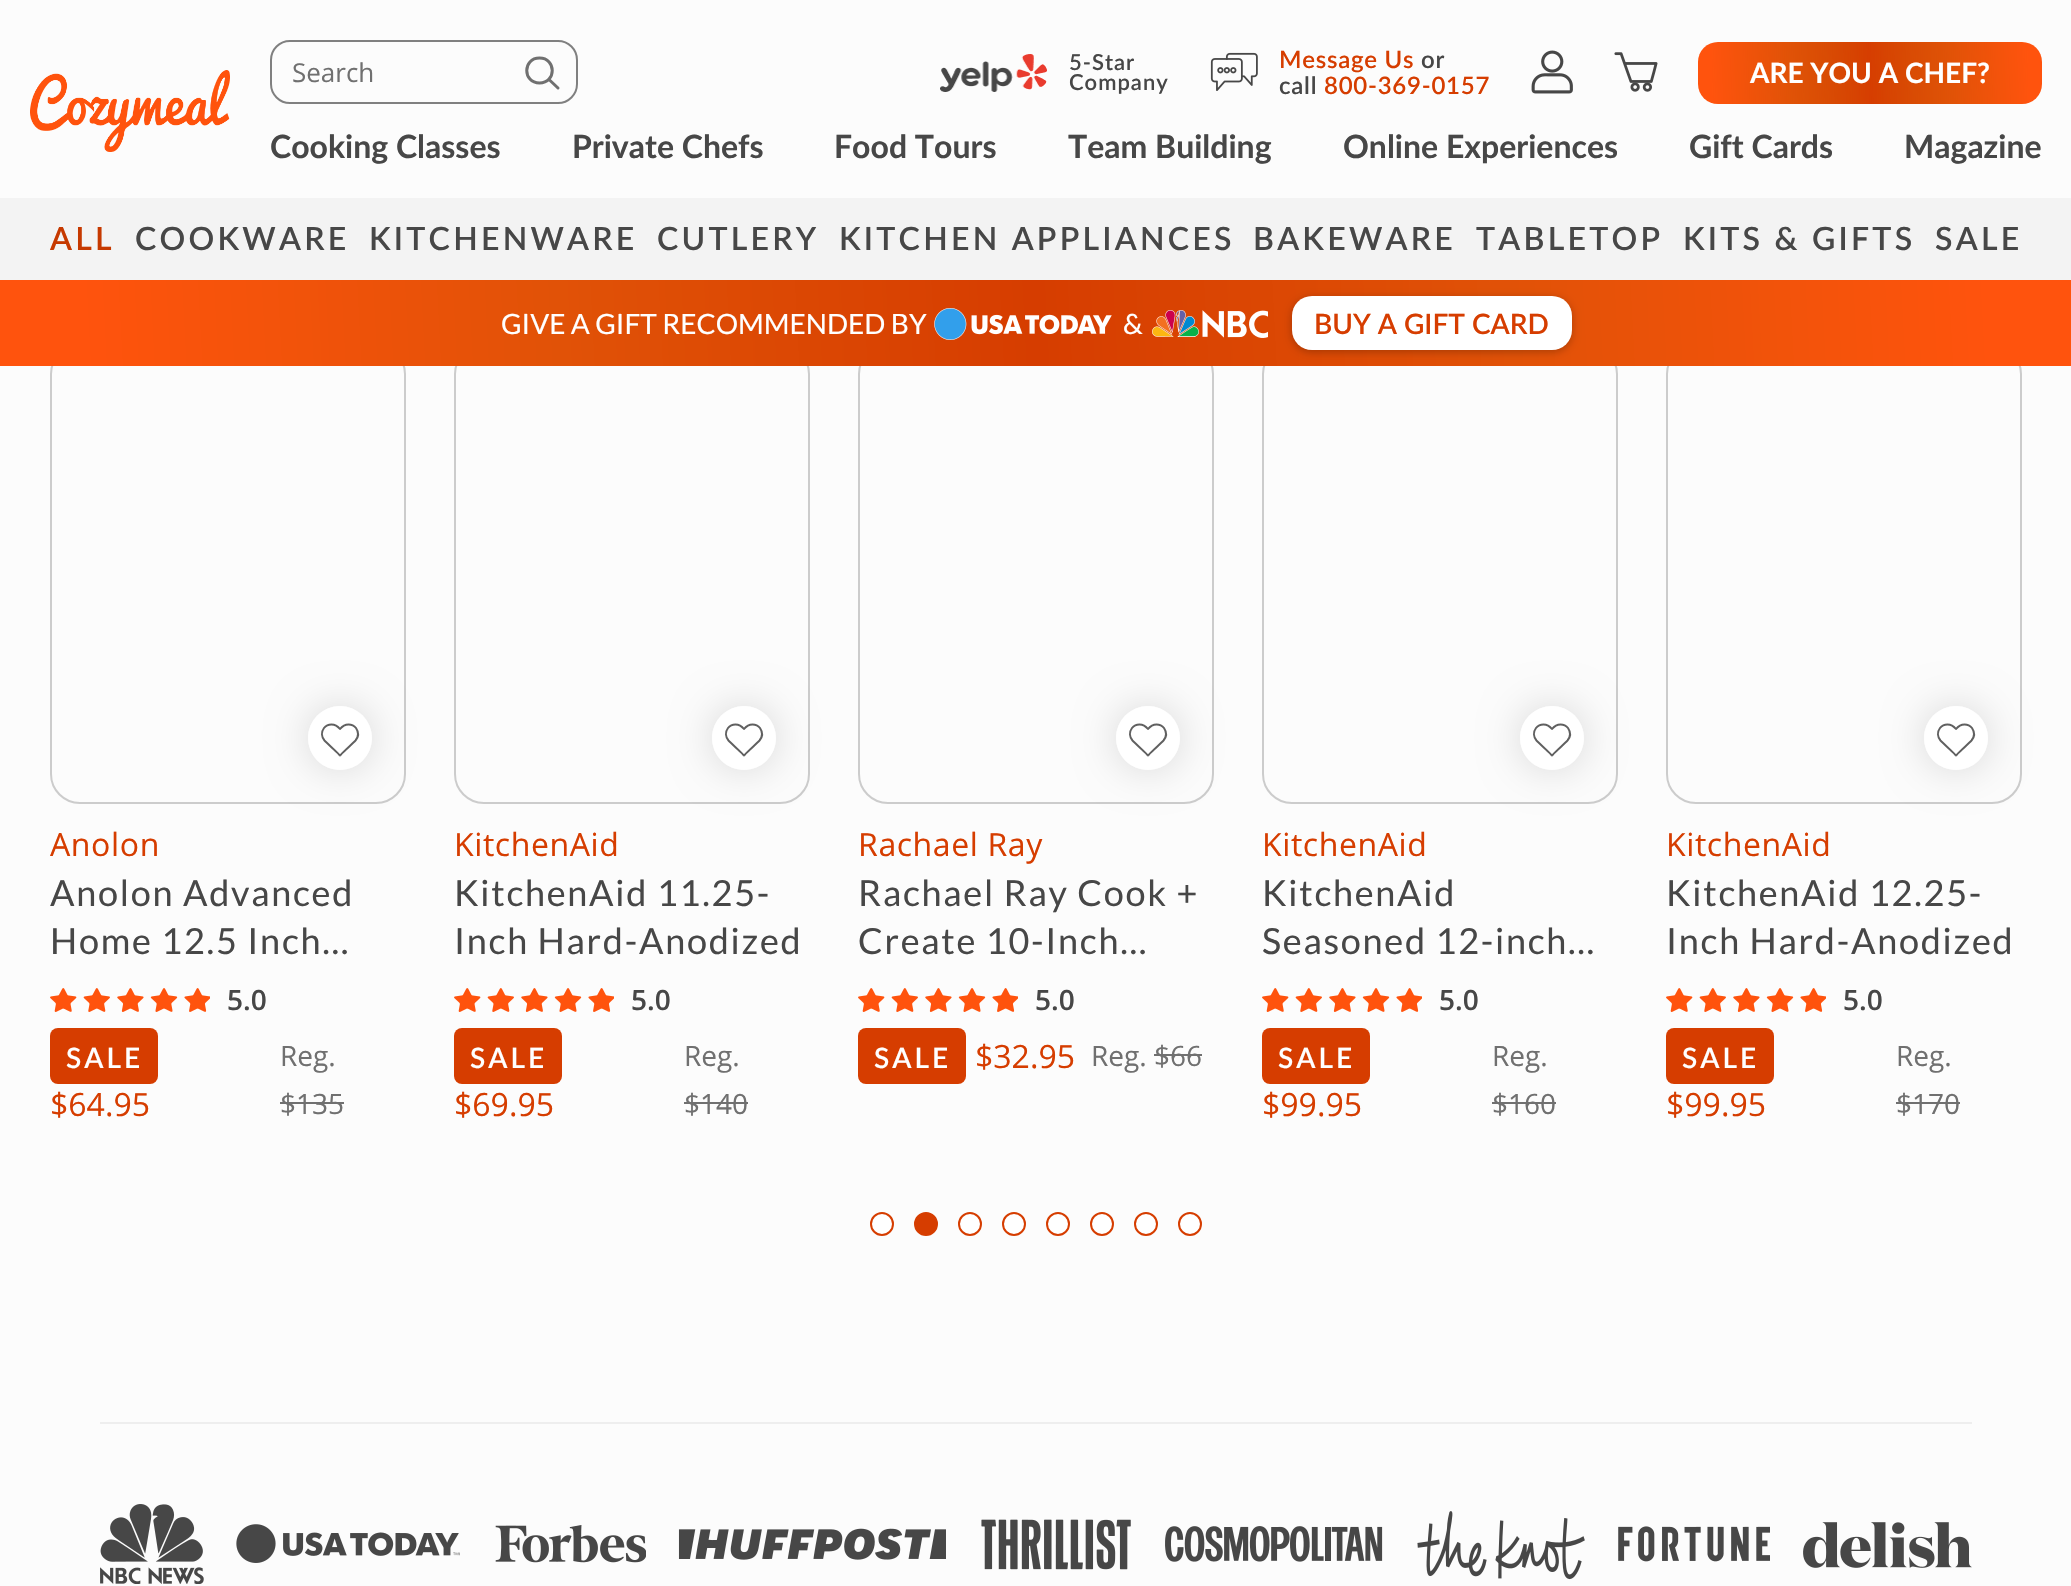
void draw(SkCanvas* canvas) {
    SkPaint paint;
    paint.setAntiAlias(true);
    auto spacedText = [&](const char* s, float x, float y, const SkFont& font, const SkPaint& ink, float letter, float word) {
        std::vector<SkGlyphID> glyphs(font.countText(s, strlen(s), SkTextEncoding::kUTF8));
        std::vector<float> xs(glyphs.size());
        font.textToGlyphs(s, strlen(s), SkTextEncoding::kUTF8, glyphs);
        font.getXPos(glyphs, xs, x);
        float extra = 0;
        for (size_t i = 0; i < glyphs.size(); i++) {
            xs[i] += extra;
            extra += letter + word * (glyphs[i] == font.unicharToGlyph(' '));
        }
        canvas->drawTextBlob(SkTextBlob::MakeFromPosHGlyphs(glyphs, xs, y, font), 0, 0, ink);
    };
    canvas->clear(0xFFFCFCFC);
    canvas->drawImageRect(SkImages::DeferredFromEncodedData(SkData::MakeFromFileName("img1.png")), SkRect::MakeXYWH(30, 70, 200, 82), SkSamplingOptions());
    paint.setStyle(SkPaint::kStroke_Style);
    paint.setStrokeWidth(2);
    paint.setColor(0xFF808080);
    canvas->drawRoundRect(SkRect::MakeXYWH(271, 41, 306, 62), 19, 19, paint);
    SkFont font1(fontMgr->matchFamilyStyle("Open Sans", SkFontStyle::Normal()), 26);
    font1.setSubpixel(true);
    paint.setStyle(SkPaint::kFill_Style);
    paint.setColor(0xFF707070);
    canvas->drawString("Search", 292, 82, font1, paint);
    paint.setStyle(SkPaint::kStroke_Style);
    paint.setStrokeWidth(3);
    paint.setStrokeCap(SkPaint::kRound_Cap);
    paint.setStrokeJoin(SkPaint::kRound_Join);
    canvas->drawPath(SkPathBuilder().moveTo(539.5f, 83).cubicTo(556.5f, 83, 556.5f, 58, 539.5f, 58).cubicTo(522.5f, 58, 522.5f, 83, 539.5f, 83).close().moveTo(549, 79.5f).lineTo(558, 88).detach(), paint);
    canvas->drawImageRect(SkImages::DeferredFromEncodedData(SkData::MakeFromFileName("img2.png")), SkRect::MakeXYWH(940, 54, 107, 38), SkSamplingOptions());
    SkFont font2(fontMgr->matchFamilyStyle("Lato", SkFontStyle(600, SkFontStyle::kNormal_Width, SkFontStyle::kUpright_Slant)), 22);
    font2.setSubpixel(true);
    paint.setStyle(SkPaint::kFill_Style);
    paint.setColor(0xFF474747);
    spacedText("5-Star", 1069, 70, font2, paint, 1, 0);
    spacedText("Company", 1069, 90, font2, paint, 1, 0);
    canvas->drawImageRect(SkImages::DeferredFromEncodedData(SkData::MakeFromFileName("img3.png")), SkRect::MakeXYWH(1210, 52, 48, 39), SkSamplingOptions());
    SkFont font3(fontMgr->matchFamilyStyle("Lato", SkFontStyle(600, SkFontStyle::kNormal_Width, SkFontStyle::kUpright_Slant)), 24);
    font3.setSubpixel(true);
    paint.setColor(0xFFD63D00);
    spacedText("Message Us", 1279, 68, font3, paint, 0.75f, 0);
    paint.setColor(0xFF474747);
    spacedText("or", 1421, 68, font3, paint, 0.75f, 0);
    spacedText("call", 1279, 94, font3, paint, 0.75f, 0);
    paint.setColor(0xFFD63D00);
    spacedText("800-369-0157", 1324, 94, font3, paint, 0.75f, 0);
    canvas->drawImageRect(SkImages::DeferredFromEncodedData(SkData::MakeFromFileName("img4.png")), SkRect::MakeXYWH(1531, 50, 42, 44), SkSamplingOptions());
    canvas->drawImageRect(SkImages::DeferredFromEncodedData(SkData::MakeFromFileName("img5.png")), SkRect::MakeXYWH(1614, 52, 44, 40), SkSamplingOptions());
    paint.setColor(0xFFFF530D);
    canvas->drawRoundRect(SkRect::MakeXYWH(1698, 42, 344, 62), 20, 20, paint);
    {
        const SkColor colors[] = {0x00C25100, 0x80C25100, 0xFFD63D00, 0x80C25100, 0x00C25100};
        const float stops[] = {0.04f, 0.27f, 0.5f, 0.73f, 0.96f};
        const SkPoint ends[] = {{1697, 82}, {2043, 64}};
        paint.setShader(SkGradientShader::MakeLinear(ends, colors, stops, 5, SkTileMode::kClamp));
        paint.setAlpha(255);
    }
    canvas->drawRect(SkRect::MakeXYWH(1712, 42, 316, 62), paint);
    SkFont font4(fontMgr->matchFamilyStyle("Lato", SkFontStyle::Bold()), 28);
    font4.setSubpixel(true);
    paint.setShader(nullptr);
    paint.setColor(0xFFFFFFFF);
    canvas->drawString("ARE YOU A CHEF?", 1750, 83, font4, paint);
    SkFont font5(fontMgr->matchFamilyStyle("Lato", SkFontStyle::Bold()), 32);
    font5.setSubpixel(true);
    paint.setColor(0xFF474747);
    canvas->drawString("Cooking Classes", 270, 158, font5, paint);
    canvas->drawString("Private Chefs", 572, 158, font5, paint);
    canvas->drawString("Food Tours", 834, 158, font5, paint);
    canvas->drawString("Team Building", 1068, 158, font5, paint);
    canvas->drawString("Online Experiences", 1343, 158, font5, paint);
    canvas->drawString("Gift Cards", 1689, 158, font5, paint);
    canvas->drawString("Magazine", 1904, 158, font5, paint);
    paint.setColor(0xFFF3F3F3);
    canvas->drawRect(SkRect::MakeXYWH(0, 198, 2071, 82), paint);
    SkFont font6(fontMgr->matchFamilyStyle("Lato", SkFontStyle(600, SkFontStyle::kNormal_Width, SkFontStyle::kUpright_Slant)), 32);
    font6.setSubpixel(true);
    paint.setColor(0xFFC63900);
    spacedText("ALL", 50, 250, font6, paint, 3.25f, 0);
    paint.setColor(0xFF474747);
    spacedText("COOKWARE", 135, 250, font6, paint, 3.25f, 0);
    spacedText("KITCHENWARE", 369, 250, font6, paint, 3.25f, 0);
    spacedText("CUTLERY", 657, 250, font6, paint, 3.25f, 0);
    spacedText("KITCHEN APPLIANCES", 839, 250, font6, paint, 3.25f, 0);
    spacedText("BAKEWARE", 1253, 250, font6, paint, 3.25f, 0);
    spacedText("TABLETOP", 1476, 250, font6, paint, 3.25f, 0);
    spacedText("KITS & GIFTS", 1683, 250, font6, paint, 3.25f, 0);
    spacedText("SALE", 1935, 250, font6, paint, 3.25f, 0);
    paint.setStyle(SkPaint::kStroke_Style);
    paint.setStrokeWidth(2);
    paint.setStrokeCap(SkPaint::kButt_Cap);
    paint.setStrokeJoin(SkPaint::kMiter_Join);
    paint.setColor(0xFFCCCCCC);
    canvas->drawRoundRect(SkRect::MakeXYWH(51, 345, 354, 458), 29, 29, paint);
    canvas->drawRoundRect(SkRect::MakeXYWH(455, 345, 354, 458), 29, 29, paint);
    canvas->drawRoundRect(SkRect::MakeXYWH(859, 345, 354, 458), 29, 29, paint);
    canvas->drawRoundRect(SkRect::MakeXYWH(1263, 345, 354, 458), 29, 29, paint);
    canvas->drawRoundRect(SkRect::MakeXYWH(1667, 345, 354, 458), 29, 29, paint);
    paint.setStyle(SkPaint::kFill_Style);
    {
        const SkColor colors[] = {0xFFFF530D, 0xFFE15207, 0xFFD63D00, 0xFFE15207, 0xFFFF530D};
        const float stops[] = {0.04f, 0.27f, 0.5f, 0.73f, 0.96f};
        const SkPoint ends[] = {{0.6f, 377}, {2071, 269}};
        paint.setShader(SkGradientShader::MakeLinear(ends, colors, stops, 5, SkTileMode::kClamp));
        paint.setAlpha(255);
    }
    canvas->drawRect(SkRect::MakeXYWH(0, 280, 2071, 86), paint);
    SkFont font7(fontMgr->matchFamilyStyle("Lato", SkFontStyle::Normal()), 28);
    font7.setSubpixel(true);
    paint.setShader(nullptr);
    paint.setColor(0xFFFFFFFF);
    canvas->drawString("GIVE A GIFT RECOMMENDED BY", 501, 334, font7, paint);
    canvas->drawImageRect(SkImages::DeferredFromEncodedData(SkData::MakeFromFileName("img6.png")), SkRect::MakeXYWH(934, 308, 178, 32), SkSamplingOptions());
    canvas->drawString("&", 1123, 334, font7, paint);
    canvas->drawImageRect(SkImages::DeferredFromEncodedData(SkData::MakeFromFileName("img7.png")), SkRect::MakeXYWH(1152, 310, 116, 28), SkSamplingOptions());
    paint.setColor(0x40000000);
    paint.setMaskFilter(SkMaskFilter::MakeBlur(kNormal_SkBlurStyle, 4));
    canvas->drawRoundRect(SkRect::MakeXYWH(1292, 298, 280, 54), 20, 20, paint);
    paint.setMaskFilter(nullptr);
    paint.setColor(0xFFFFFFFF);
    canvas->drawRoundRect(SkRect::MakeXYWH(1292, 296, 280, 54), 20, 20, paint);
    SkFont font8(fontMgr->matchFamilyStyle("Lato", SkFontStyle(600, SkFontStyle::kNormal_Width, SkFontStyle::kUpright_Slant)), 28);
    font8.setSubpixel(true);
    paint.setColor(0xFFD63D00);
    canvas->drawString("BUY A GIFT CARD", 1314, 334, font8, paint);
    canvas->save();
    canvas->clipPath(SkPathBuilder(SkPathFillType::kEvenOdd).moveTo(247, 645).lineTo(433, 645).lineTo(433, 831).lineTo(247, 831).close().moveTo(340, 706).cubicTo(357.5f, 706, 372, 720.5f, 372, 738).cubicTo(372, 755.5f, 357.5f, 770, 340, 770).cubicTo(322.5f, 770, 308, 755.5f, 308, 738).cubicTo(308, 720.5f, 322.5f, 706, 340, 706).close().detach(), true);
    paint.setColor(0x26000000);
    paint.setMaskFilter(SkMaskFilter::MakeBlur(kNormal_SkBlurStyle, 20));
    canvas->drawRoundRect(SkRect::MakeXYWH(308, 706, 64, 64), 32, 32, paint);
    paint.setMaskFilter(nullptr);
    canvas->restore();
    paint.setColor(0xD9FFFFFF);
    canvas->drawCircle(340, 738, 32, paint);
    paint.setStyle(SkPaint::kStroke_Style);
    paint.setStrokeCap(SkPaint::kRound_Cap);
    paint.setStrokeJoin(SkPaint::kRound_Join);
    paint.setColor(0xFF606060);
    canvas->drawPath(SkPathBuilder().moveTo(340, 755.5f).cubicTo(340, 755, 327, 743, 324.5f, 740.5f).cubicTo(321.5f, 737, 321, 732, 324, 728).cubicTo(327.5f, 723.5f, 335, 722.5f, 340, 729).cubicTo(345, 722.5f, 352.5f, 723.5f, 356, 728).cubicTo(359, 732.5f, 358.5f, 737, 355.5f, 740.5f).cubicTo(353, 743, 340, 755, 340, 755.5f).close().detach(), paint);
    SkFont font9(fontMgr->matchFamilyStyle("Open Sans", SkFontStyle::Normal()), 32);
    font9.setSubpixel(true);
    paint.setStyle(SkPaint::kFill_Style);
    paint.setColor(0xFFD63D00);
    spacedText("Anolon", 50, 856, font9, paint, 0.6f, 0);
    SkFont font10(fontMgr->matchFamilyStyle("Lato", SkFontStyle::Normal()), 36);
    font10.setSubpixel(true);
    paint.setColor(0xFF474747);
    spacedText("Anolon Advanced", 50, 906, font10, paint, 1.75f, 0);
    spacedText("Home 12.5 Inch…", 50, 954, font10, paint, 1.75f, 0);
    canvas->drawImageRect(SkImages::DeferredFromEncodedData(SkData::MakeFromFileName("img8.png")), SkRect::MakeXYWH(50, 988, 160, 24), SkSamplingOptions());
    SkFont font11(fontMgr->matchFamilyStyle("Open Sans", SkFontStyle(600, SkFontStyle::kNormal_Width, SkFontStyle::kUpright_Slant)), 28);
    font11.setSubpixel(true);
    canvas->drawString("5.0", 227, 1010, font11, paint);
    paint.setColor(0xFFD63D00);
    canvas->drawRoundRect(SkRect::MakeXYWH(50, 1028, 108, 56), 8, 8, paint);
    paint.setColor(0xFFFFFFFF);
    spacedText("SALE", 66, 1068, font8, paint, 3, 0);
    paint.setColor(0xFFD63D00);
    canvas->drawString("$64.95", 50, 1116, font9, paint);
    SkFont font12(fontMgr->matchFamilyStyle("Open Sans", SkFontStyle::Normal()), 28);
    font12.setSubpixel(true);
    paint.setColor(0xFF707070);
    canvas->drawString("Reg.", 280, 1066, font12, paint);
    canvas->drawString("$135", 280, 1114, font12, paint);
    canvas->drawRect(SkRect::MakeXYWH(280, 1102, 64, 2), paint);
    canvas->save();
    canvas->clipPath(SkPathBuilder(SkPathFillType::kEvenOdd).moveTo(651, 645).lineTo(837, 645).lineTo(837, 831).lineTo(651, 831).close().moveTo(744, 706).cubicTo(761.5f, 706, 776, 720.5f, 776, 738).cubicTo(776, 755.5f, 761.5f, 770, 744, 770).cubicTo(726.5f, 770, 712, 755.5f, 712, 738).cubicTo(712, 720.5f, 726.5f, 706, 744, 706).close().detach(), true);
    paint.setColor(0x26000000);
    paint.setMaskFilter(SkMaskFilter::MakeBlur(kNormal_SkBlurStyle, 20));
    canvas->drawRoundRect(SkRect::MakeXYWH(712, 706, 64, 64), 32, 32, paint);
    paint.setMaskFilter(nullptr);
    canvas->restore();
    paint.setColor(0xD9FFFFFF);
    canvas->drawCircle(744, 738, 32, paint);
    paint.setStyle(SkPaint::kStroke_Style);
    paint.setColor(0xFF606060);
    canvas->drawPath(SkPathBuilder().moveTo(744, 755.5f).cubicTo(744, 755, 731, 743, 728.5f, 740.5f).cubicTo(725.5f, 737, 725, 732, 728, 728).cubicTo(731.5f, 723.5f, 739, 722.5f, 744, 729).cubicTo(749, 722.5f, 756.5f, 723.5f, 760, 728).cubicTo(763, 732.5f, 762.5f, 737, 759.5f, 740.5f).cubicTo(757, 743, 744, 755, 744, 755.5f).close().detach(), paint);
    paint.setStyle(SkPaint::kFill_Style);
    paint.setColor(0xFFD63D00);
    spacedText("KitchenAid", 454, 856, font9, paint, 0.6f, 0);
    paint.setColor(0xFF474747);
    spacedText("KitchenAid 11.25-", 454, 906, font10, paint, 1.75f, 0);
    spacedText("Inch Hard-Anodized", 454, 954, font10, paint, 1.75f, 0);
    canvas->drawImageRect(SkImages::DeferredFromEncodedData(SkData::MakeFromFileName("img8.png")), SkRect::MakeXYWH(454, 988, 160, 24), SkSamplingOptions());
    canvas->drawString("5.0", 631, 1010, font11, paint);
    paint.setColor(0xFFD63D00);
    canvas->drawRoundRect(SkRect::MakeXYWH(454, 1028, 108, 56), 8, 8, paint);
    paint.setColor(0xFFFFFFFF);
    spacedText("SALE", 470, 1068, font8, paint, 3, 0);
    paint.setColor(0xFFD63D00);
    canvas->drawString("$69.95", 454, 1116, font9, paint);
    paint.setColor(0xFF707070);
    canvas->drawString("Reg.", 684, 1066, font12, paint);
    canvas->drawString("$140", 684, 1114, font12, paint);
    canvas->drawRect(SkRect::MakeXYWH(684, 1102, 64, 2), paint);
    canvas->save();
    canvas->clipPath(SkPathBuilder(SkPathFillType::kEvenOdd).moveTo(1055, 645).lineTo(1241, 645).lineTo(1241, 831).lineTo(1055, 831).close().moveTo(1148, 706).cubicTo(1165.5f, 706, 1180, 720.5f, 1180, 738).cubicTo(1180, 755.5f, 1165.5f, 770, 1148, 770).cubicTo(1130.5f, 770, 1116, 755.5f, 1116, 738).cubicTo(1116, 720.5f, 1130.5f, 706, 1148, 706).close().detach(), true);
    paint.setColor(0x26000000);
    paint.setMaskFilter(SkMaskFilter::MakeBlur(kNormal_SkBlurStyle, 20));
    canvas->drawRoundRect(SkRect::MakeXYWH(1116, 706, 64, 64), 32, 32, paint);
    paint.setMaskFilter(nullptr);
    canvas->restore();
    paint.setColor(0xD9FFFFFF);
    canvas->drawCircle(1148, 738, 32, paint);
    paint.setStyle(SkPaint::kStroke_Style);
    paint.setColor(0xFF606060);
    canvas->drawPath(SkPathBuilder().moveTo(1148, 755.5f).cubicTo(1148, 755, 1135, 743, 1132.5f, 740.5f).cubicTo(1129.5f, 737, 1129, 732, 1132, 728).cubicTo(1135.5f, 723.5f, 1143, 722.5f, 1148, 729).cubicTo(1153, 722.5f, 1160.5f, 723.5f, 1164, 728).cubicTo(1167, 732.5f, 1166.5f, 737, 1163.5f, 740.5f).cubicTo(1161, 743, 1148, 755, 1148, 755.5f).close().detach(), paint);
    paint.setStyle(SkPaint::kFill_Style);
    paint.setColor(0xFFD63D00);
    spacedText("Rachael Ray", 858, 856, font9, paint, 0.6f, 0);
    paint.setColor(0xFF474747);
    spacedText("Rachael Ray Cook +", 858, 906, font10, paint, 1.75f, 0);
    spacedText("Create 10-Inch…", 858, 954, font10, paint, 1.75f, 0);
    canvas->drawImageRect(SkImages::DeferredFromEncodedData(SkData::MakeFromFileName("img8.png")), SkRect::MakeXYWH(858, 988, 160, 24), SkSamplingOptions());
    canvas->drawString("5.0", 1035, 1010, font11, paint);
    paint.setColor(0xFFD63D00);
    canvas->drawRoundRect(SkRect::MakeXYWH(858, 1028, 108, 56), 8, 8, paint);
    paint.setColor(0xFFFFFFFF);
    spacedText("SALE", 874, 1068, font8, paint, 3, 0);
    paint.setColor(0xFFD63D00);
    canvas->drawString("$32.95", 975, 1068, font9, paint);
    paint.setColor(0xFF707070);
    canvas->drawString("Reg. $66", 1091, 1066, font12, paint);
    canvas->drawRect(SkRect::MakeXYWH(1154, 1054, 48, 2), paint);
    canvas->save();
    canvas->clipPath(SkPathBuilder(SkPathFillType::kEvenOdd).moveTo(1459, 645).lineTo(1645, 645).lineTo(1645, 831).lineTo(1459, 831).close().moveTo(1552, 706).cubicTo(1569.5f, 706, 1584, 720.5f, 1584, 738).cubicTo(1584, 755.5f, 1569.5f, 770, 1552, 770).cubicTo(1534.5f, 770, 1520, 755.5f, 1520, 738).cubicTo(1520, 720.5f, 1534.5f, 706, 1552, 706).close().detach(), true);
    paint.setColor(0x26000000);
    paint.setMaskFilter(SkMaskFilter::MakeBlur(kNormal_SkBlurStyle, 20));
    canvas->drawRoundRect(SkRect::MakeXYWH(1520, 706, 64, 64), 32, 32, paint);
    paint.setMaskFilter(nullptr);
    canvas->restore();
    paint.setColor(0xD9FFFFFF);
    canvas->drawCircle(1552, 738, 32, paint);
    paint.setStyle(SkPaint::kStroke_Style);
    paint.setColor(0xFF606060);
    canvas->drawPath(SkPathBuilder().moveTo(1552, 755.5f).cubicTo(1552, 755, 1539, 743, 1536.5f, 740.5f).cubicTo(1533.5f, 737, 1533, 732, 1536, 728).cubicTo(1539.5f, 723.5f, 1547, 722.5f, 1552, 729).cubicTo(1557, 722.5f, 1564.5f, 723.5f, 1568, 728).cubicTo(1571, 732.5f, 1570.5f, 737, 1567.5f, 740.5f).cubicTo(1565, 743, 1552, 755, 1552, 755.5f).close().detach(), paint);
    paint.setStyle(SkPaint::kFill_Style);
    paint.setColor(0xFFD63D00);
    spacedText("KitchenAid", 1262, 856, font9, paint, 0.6f, 0);
    paint.setColor(0xFF474747);
    spacedText("KitchenAid", 1262, 906, font10, paint, 1.75f, 0);
    spacedText("Seasoned 12-inch…", 1262, 954, font10, paint, 1.75f, 0);
    canvas->drawImageRect(SkImages::DeferredFromEncodedData(SkData::MakeFromFileName("img8.png")), SkRect::MakeXYWH(1262, 988, 160, 24), SkSamplingOptions());
    canvas->drawString("5.0", 1439, 1010, font11, paint);
    paint.setColor(0xFFD63D00);
    canvas->drawRoundRect(SkRect::MakeXYWH(1262, 1028, 108, 56), 8, 8, paint);
    paint.setColor(0xFFFFFFFF);
    spacedText("SALE", 1278, 1068, font8, paint, 3, 0);
    paint.setColor(0xFFD63D00);
    canvas->drawString("$99.95", 1262, 1116, font9, paint);
    paint.setColor(0xFF707070);
    canvas->drawString("Reg.", 1492, 1066, font12, paint);
    canvas->drawString("$160", 1492, 1114, font12, paint);
    canvas->drawRect(SkRect::MakeXYWH(1492, 1102, 64, 2), paint);
    canvas->save();
    canvas->clipPath(SkPathBuilder(SkPathFillType::kEvenOdd).moveTo(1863, 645).lineTo(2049, 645).lineTo(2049, 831).lineTo(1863, 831).close().moveTo(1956, 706).cubicTo(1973.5f, 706, 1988, 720.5f, 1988, 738).cubicTo(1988, 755.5f, 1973.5f, 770, 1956, 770).cubicTo(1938.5f, 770, 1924, 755.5f, 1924, 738).cubicTo(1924, 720.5f, 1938.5f, 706, 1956, 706).close().detach(), true);
    paint.setColor(0x26000000);
    paint.setMaskFilter(SkMaskFilter::MakeBlur(kNormal_SkBlurStyle, 20));
    canvas->drawRoundRect(SkRect::MakeXYWH(1924, 706, 64, 64), 32, 32, paint);
    paint.setMaskFilter(nullptr);
    canvas->restore();
    paint.setColor(0xD9FFFFFF);
    canvas->drawCircle(1956, 738, 32, paint);
    paint.setStyle(SkPaint::kStroke_Style);
    paint.setColor(0xFF606060);
    canvas->drawPath(SkPathBuilder().moveTo(1956, 755.5f).cubicTo(1956, 755, 1943, 743, 1940.5f, 740.5f).cubicTo(1937.5f, 737, 1937, 732, 1940, 728).cubicTo(1943.5f, 723.5f, 1951, 722.5f, 1956, 729).cubicTo(1961, 722.5f, 1968.5f, 723.5f, 1972, 728).cubicTo(1975, 732.5f, 1974.5f, 737, 1971.5f, 740.5f).cubicTo(1969, 743, 1956, 755, 1956, 755.5f).close().detach(), paint);
    paint.setStyle(SkPaint::kFill_Style);
    paint.setColor(0xFFD63D00);
    spacedText("KitchenAid", 1666, 856, font9, paint, 0.6f, 0);
    paint.setColor(0xFF474747);
    spacedText("KitchenAid 12.25-", 1666, 906, font10, paint, 1.75f, 0);
    spacedText("Inch Hard-Anodized", 1666, 954, font10, paint, 1.75f, 0);
    canvas->drawImageRect(SkImages::DeferredFromEncodedData(SkData::MakeFromFileName("img8.png")), SkRect::MakeXYWH(1666, 988, 160, 24), SkSamplingOptions());
    canvas->drawString("5.0", 1843, 1010, font11, paint);
    paint.setColor(0xFFD63D00);
    canvas->drawRoundRect(SkRect::MakeXYWH(1666, 1028, 108, 56), 8, 8, paint);
    paint.setColor(0xFFFFFFFF);
    spacedText("SALE", 1682, 1068, font8, paint, 3, 0);
    paint.setColor(0xFFD63D00);
    canvas->drawString("$99.95", 1666, 1116, font9, paint);
    paint.setColor(0xFF707070);
    canvas->drawString("Reg.", 1896, 1066, font12, paint);
    canvas->drawString("$170", 1896, 1114, font12, paint);
    canvas->drawRect(SkRect::MakeXYWH(1896, 1102, 64, 2), paint);
    paint.setColor(0xFFFFFFFF);
    canvas->drawCircle(882, 1224, 11, paint);
    paint.setStyle(SkPaint::kStroke_Style);
    paint.setStrokeCap(SkPaint::kButt_Cap);
    paint.setStrokeJoin(SkPaint::kMiter_Join);
    paint.setColor(0xFFD63D00);
    canvas->drawCircle(882, 1224, 11, paint);
    paint.setStyle(SkPaint::kFill_Style);
    canvas->drawCircle(926, 1224, 11, paint);
    paint.setStyle(SkPaint::kStroke_Style);
    canvas->drawCircle(926, 1224, 11, paint);
    paint.setStyle(SkPaint::kFill_Style);
    paint.setColor(0xFFFFFFFF);
    canvas->drawCircle(970, 1224, 11, paint);
    paint.setStyle(SkPaint::kStroke_Style);
    paint.setColor(0xFFD63D00);
    canvas->drawCircle(970, 1224, 11, paint);
    paint.setStyle(SkPaint::kFill_Style);
    paint.setColor(0xFFFFFFFF);
    canvas->drawCircle(1014, 1224, 11, paint);
    paint.setStyle(SkPaint::kStroke_Style);
    paint.setColor(0xFFD63D00);
    canvas->drawCircle(1014, 1224, 11, paint);
    paint.setStyle(SkPaint::kFill_Style);
    paint.setColor(0xFFFFFFFF);
    canvas->drawCircle(1058, 1224, 11, paint);
    paint.setStyle(SkPaint::kStroke_Style);
    paint.setColor(0xFFD63D00);
    canvas->drawCircle(1058, 1224, 11, paint);
    paint.setStyle(SkPaint::kFill_Style);
    paint.setColor(0xFFFFFFFF);
    canvas->drawCircle(1102, 1224, 11, paint);
    paint.setStyle(SkPaint::kStroke_Style);
    paint.setColor(0xFFD63D00);
    canvas->drawCircle(1102, 1224, 11, paint);
    paint.setStyle(SkPaint::kFill_Style);
    paint.setColor(0xFFFFFFFF);
    canvas->drawCircle(1146, 1224, 11, paint);
    paint.setStyle(SkPaint::kStroke_Style);
    paint.setColor(0xFFD63D00);
    canvas->drawCircle(1146, 1224, 11, paint);
    paint.setStyle(SkPaint::kFill_Style);
    paint.setColor(0xFFFFFFFF);
    canvas->drawCircle(1190, 1224, 11, paint);
    paint.setStyle(SkPaint::kStroke_Style);
    paint.setColor(0xFFD63D00);
    canvas->drawCircle(1190, 1224, 11, paint);
    paint.setStyle(SkPaint::kFill_Style);
    paint.setColor(0xFFEEEEEE);
    canvas->drawRect(SkRect::MakeXYWH(100, 1422, 1872, 2), paint);
    canvas->drawImageRect(SkImages::DeferredFromEncodedData(SkData::MakeFromFileName("img9.png")), SkRect::MakeXYWH(100, 1504, 104, 80), SkSamplingOptions());
    canvas->drawImageRect(SkImages::DeferredFromEncodedData(SkData::MakeFromFileName("img10.png")), SkRect::MakeXYWH(236, 1524, 224, 39), SkSamplingOptions());
    canvas->drawImageRect(SkImages::DeferredFromEncodedData(SkData::MakeFromFileName("img11.png")), SkRect::MakeXYWH(495, 1525, 151, 38), SkSamplingOptions());
    canvas->drawImageRect(SkImages::DeferredFromEncodedData(SkData::MakeFromFileName("img12.png")), SkRect::MakeXYWH(678, 1528, 268, 32), SkSamplingOptions());
    canvas->drawImageRect(SkImages::DeferredFromEncodedData(SkData::MakeFromFileName("img13.png")), SkRect::MakeXYWH(981, 1519, 150, 51), SkSamplingOptions());
    canvas->drawImageRect(SkImages::DeferredFromEncodedData(SkData::MakeFromFileName("img14.png")), SkRect::MakeXYWH(1165, 1526, 218, 36), SkSamplingOptions());
    canvas->drawImageRect(SkImages::DeferredFromEncodedData(SkData::MakeFromFileName("img15.png")), SkRect::MakeXYWH(1417, 1511, 168, 69), SkSamplingOptions());
    canvas->drawImageRect(SkImages::DeferredFromEncodedData(SkData::MakeFromFileName("img16.png")), SkRect::MakeXYWH(1618, 1526, 152, 36), SkSamplingOptions());
    canvas->drawImageRect(SkImages::DeferredFromEncodedData(SkData::MakeFromFileName("img17.png")), SkRect::MakeXYWH(1803, 1522, 169, 46), SkSamplingOptions());
}
